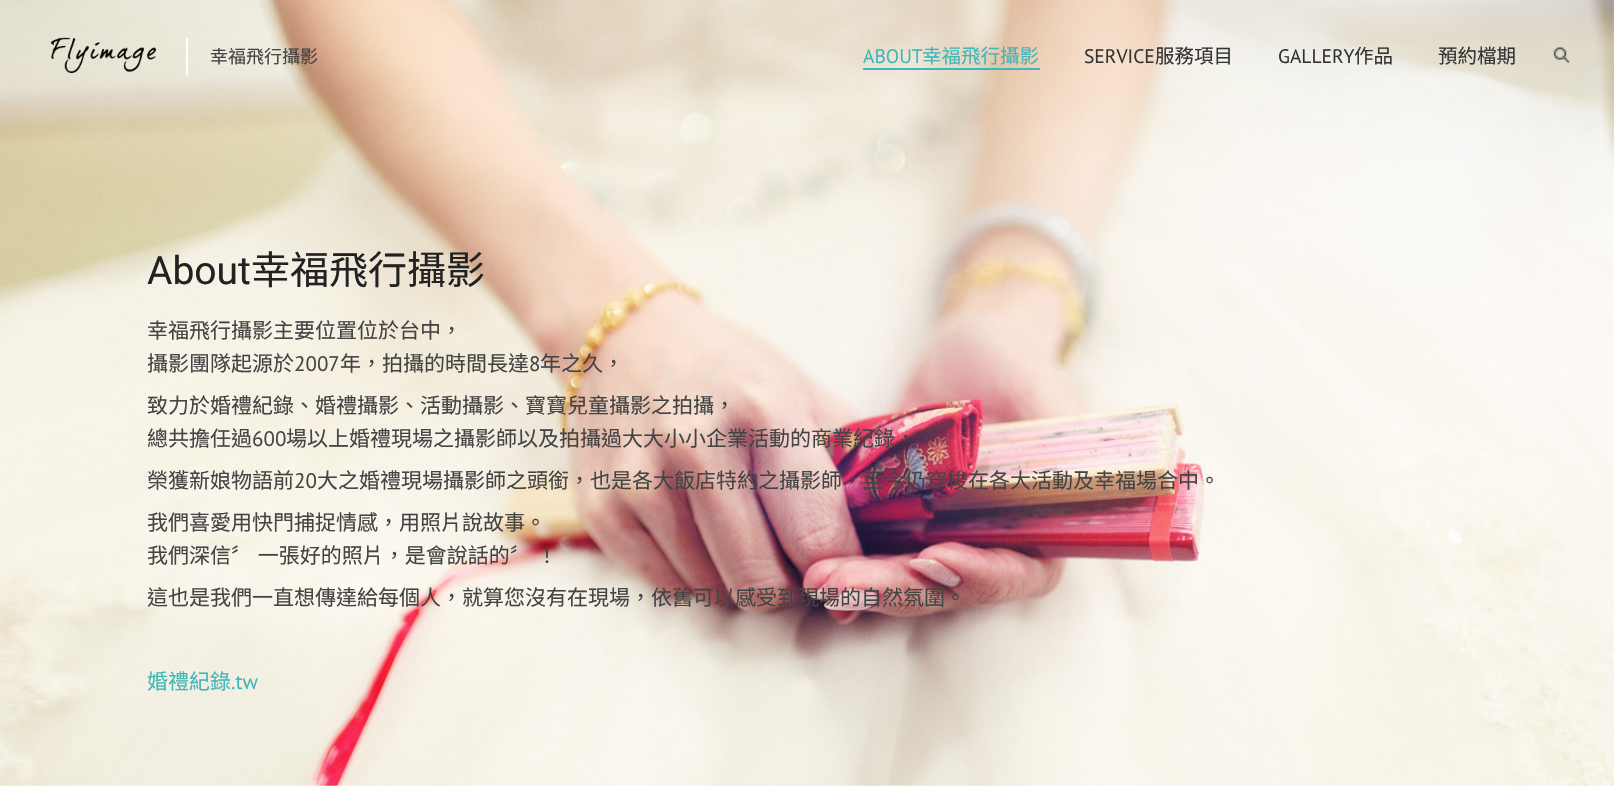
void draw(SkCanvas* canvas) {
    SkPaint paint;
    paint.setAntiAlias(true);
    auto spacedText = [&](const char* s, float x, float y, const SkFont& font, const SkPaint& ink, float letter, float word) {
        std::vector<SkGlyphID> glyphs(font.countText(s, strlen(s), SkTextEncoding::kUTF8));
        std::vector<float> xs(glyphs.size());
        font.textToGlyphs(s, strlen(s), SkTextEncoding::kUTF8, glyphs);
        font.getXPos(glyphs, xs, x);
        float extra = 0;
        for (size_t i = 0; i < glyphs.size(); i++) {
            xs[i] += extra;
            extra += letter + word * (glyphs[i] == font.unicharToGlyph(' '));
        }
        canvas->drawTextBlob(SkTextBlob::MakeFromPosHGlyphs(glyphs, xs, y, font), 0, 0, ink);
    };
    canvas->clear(0xFFFFFFFF);
    canvas->drawImageRect(SkImages::DeferredFromEncodedData(SkData::MakeFromFileName("img1.png")), SkRect::MakeXYWH(0, 0, 1614, 786), SkSamplingOptions());
    canvas->drawImageRect(SkImages::DeferredFromEncodedData(SkData::MakeFromFileName("img2.png")), SkRect::MakeXYWH(51, 37, 105, 36), SkSamplingOptions());
    paint.setColor(0xFFFFFFFF);
    canvas->drawRect(SkRect::MakeXYWH(186, 38, 2, 37), paint);
    SkFont font1(fontMgr->matchFamilyStyle("Noto Sans CJK TC", SkFontStyle::Normal()), 18);
    font1.setSubpixel(true);
    paint.setColor(0xFF444444);
    canvas->drawString("幸福飛行攝影", 210, 63, font1, paint);
    SkFont font2(fontMgr->matchFamilyStyle("PT Sans", SkFontStyle::Normal()), 19.5f);
    font2.setSubpixel(true);
    paint.setColor(0xFF40B7B8);
    canvas->drawString("ABOUT", 863, 63, font2, paint);
    SkFont font3(fontMgr->matchFamilyStyle("Noto Sans CJK TC", SkFontStyle::Normal()), 19.5f);
    font3.setSubpixel(true);
    canvas->drawString("幸福飛行攝影", 922, 63, font3, paint);
    canvas->drawRect(SkRect::MakeXYWH(863, 68, 177, 2), paint);
    paint.setColor(0xFF343434);
    canvas->drawString("SERVICE", 1084, 63, font2, paint);
    canvas->drawString("服務項目", 1155, 63, font3, paint);
    canvas->drawString("GALLERY", 1278, 63, font2, paint);
    canvas->drawString("作品", 1354, 63, font3, paint);
    canvas->drawString("預約檔期", 1438, 63, font3, paint);
    canvas->drawImageRect(SkImages::DeferredFromEncodedData(SkData::MakeFromFileName("img3.png")), SkRect::MakeXYWH(1553, 47, 17, 16), SkSamplingOptions());
    SkFont font4(fontMgr->matchFamilyStyle("Roboto", SkFontStyle::Normal()), 39);
    font4.setSubpixel(true);
    paint.setColor(0xFF222222);
    canvas->drawString("About", 147, 284, font4, paint);
    SkFont font5(fontMgr->matchFamilyStyle("Noto Sans CJK TC", SkFontStyle::Normal()), 39);
    font5.setSubpixel(true);
    canvas->drawString("幸福飛行攝影", 251, 284, font5, paint);
    SkFont font6(fontMgr->matchFamilyStyle("Noto Sans CJK TC", SkFontStyle::Normal()), 21);
    font6.setSubpixel(true);
    paint.setColor(0xFF444444);
    canvas->drawString("幸福飛行攝影主要位置位於台中，", 147, 338, font6, paint);
    canvas->drawString("攝影團隊起源於", 147, 371, font6, paint);
    SkFont font7(fontMgr->matchFamilyStyle("PT Sans", SkFontStyle::Normal()), 21);
    font7.setSubpixel(true);
    canvas->drawString("2007", 294, 371, font7, paint);
    canvas->drawString("年，拍攝的時間長達", 340, 371, font6, paint);
    canvas->drawString("8", 529, 371, font7, paint);
    canvas->drawString("年之久，", 540, 371, font6, paint);
    canvas->drawString("致力於婚禮紀錄、婚禮攝影、活動攝影、寶寶兒童攝影之拍攝，", 147, 413, font6, paint);
    canvas->drawString("總共擔任過", 147, 446, font6, paint);
    canvas->drawString("600", 252, 446, font7, paint);
    canvas->drawString("場以上婚禮現場之攝影師以及拍攝過大大小小企業活動的商業紀錄，", 286, 446, font6, paint);
    canvas->drawString("榮獲新娘物語前", 147, 488, font6, paint);
    canvas->drawString("20", 294, 488, font7, paint);
    canvas->drawString("大之婚禮現場攝影師之頭銜，也是各大飯店特約之攝影師，至今仍穿梭在各大活動及幸福場合中。", 317, 488, font6, paint);
    canvas->drawString("我們喜愛用快門捕捉情感，用照片說故事。", 147, 530, font6, paint);
    spacedText("我們深信〞 一張好的照片，是會說話的〞 ！", 147, 563, font6, paint, 0, 1);
    canvas->drawString("這也是我們一直想傳達給每個人，就算您沒有在現場，依舊可以感受到現場的自然氛圍。", 147, 605, font6, paint);
    paint.setColor(0xFF40B7B8);
    canvas->drawString("婚禮紀錄", 147, 689, font6, paint);
    canvas->drawString(".tw", 231, 689, font7, paint);
}
